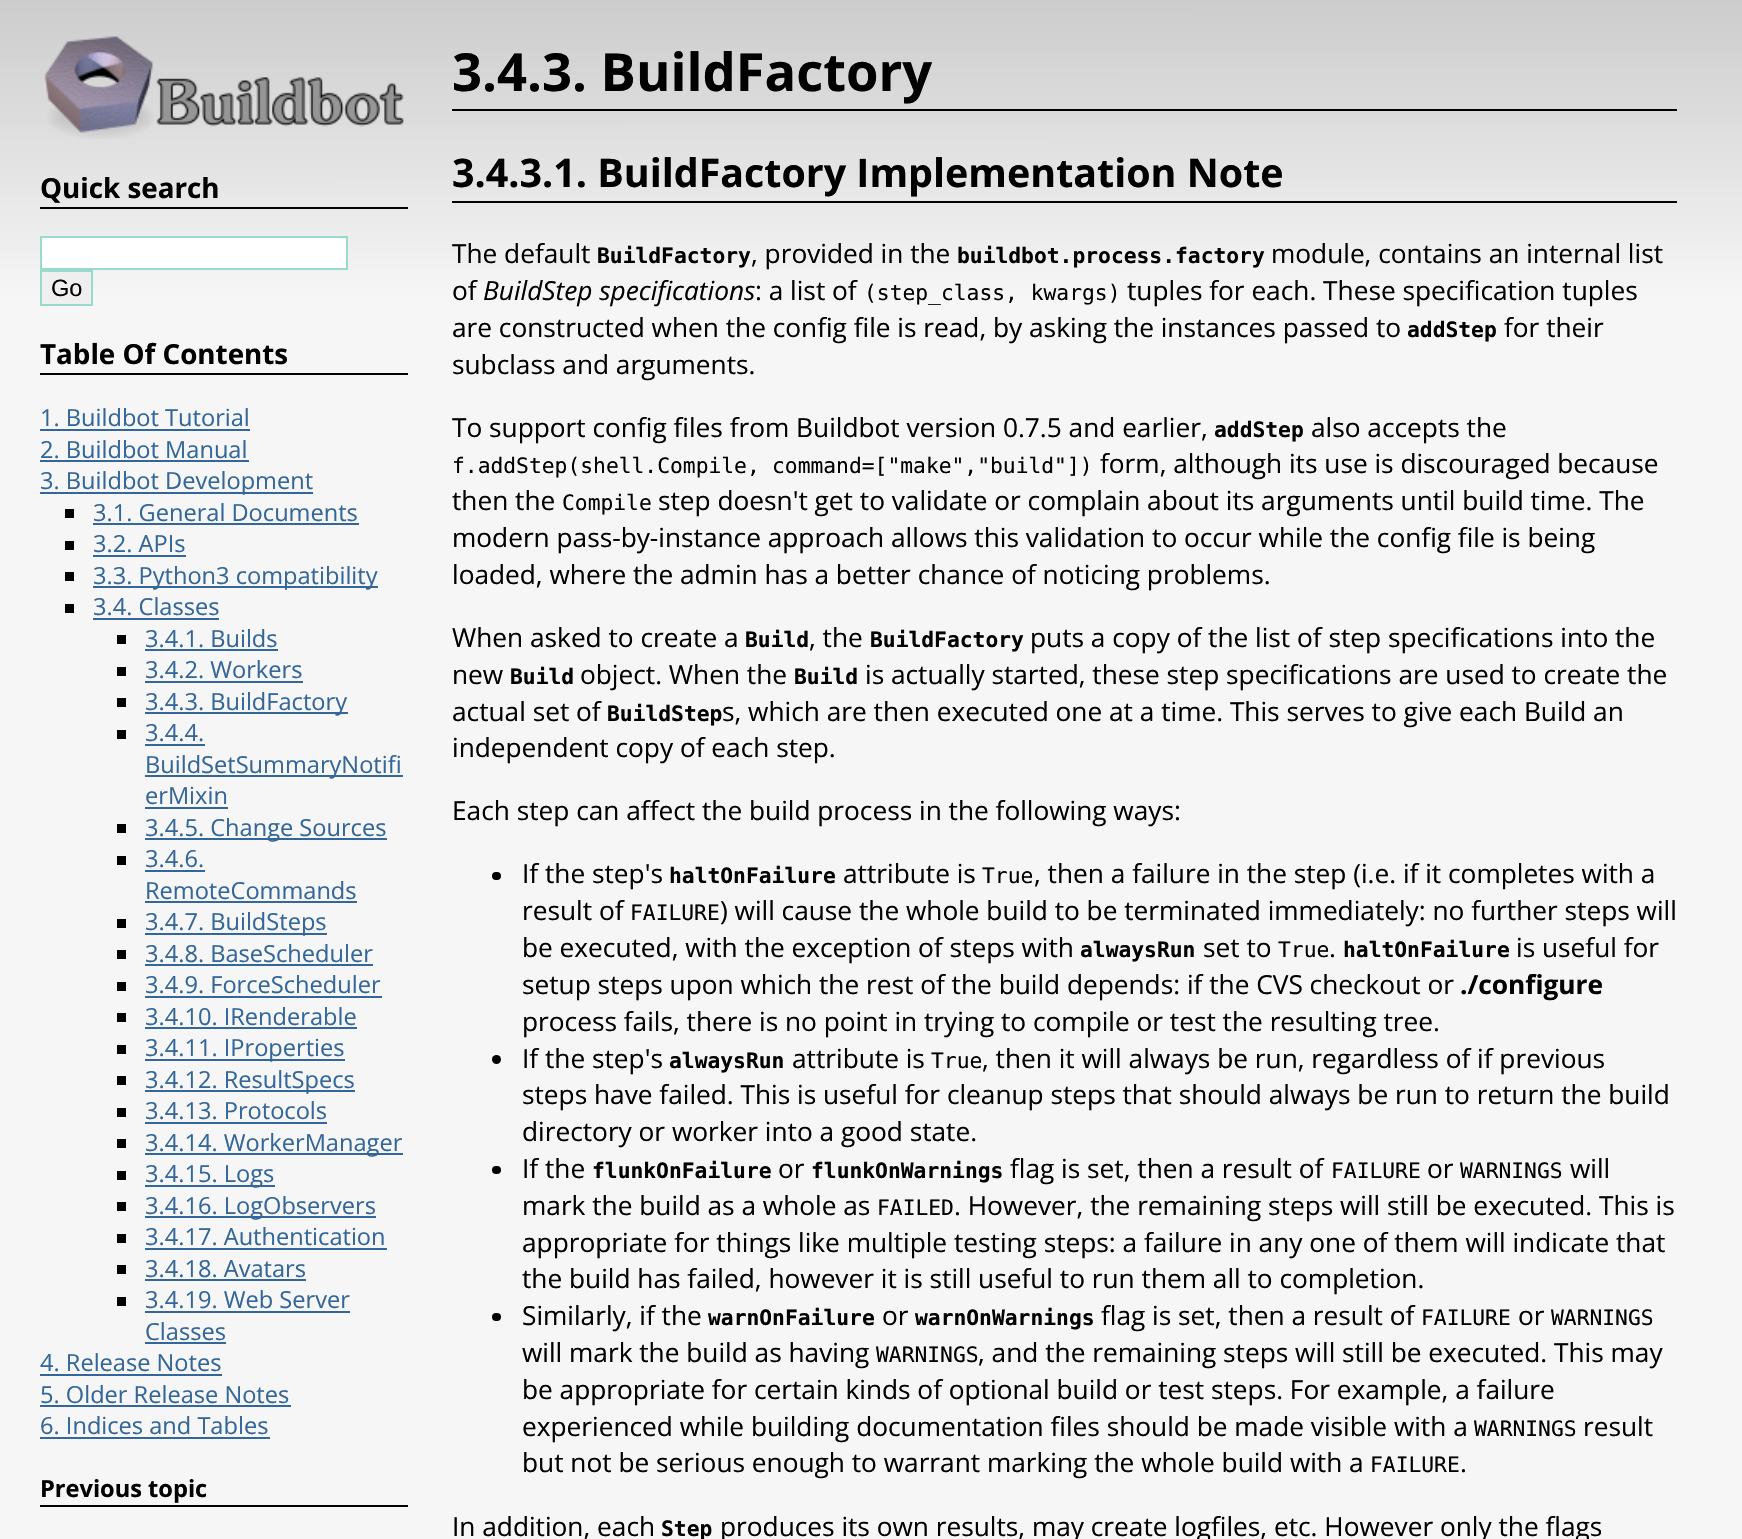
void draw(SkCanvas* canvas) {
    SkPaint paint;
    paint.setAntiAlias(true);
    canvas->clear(0xFFFFFFFF);
    {
        const SkColor colors[] = {0xFFCCCCCC, 0xFFF6F6F6};
        const float stops[] = {0, 0.15f};
        const SkPoint ends[] = {{871, 0}, {872, 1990}};
        paint.setShader(SkGradientShader::MakeLinear(ends, colors, stops, 2, SkTileMode::kClamp));
        paint.setAlpha(255);
    }
    canvas->drawRect(SkRect::MakeXYWH(0, 0, 1742, 1539), paint);
    canvas->drawImageRect(SkImages::DeferredFromEncodedData(SkData::MakeFromFileName("img1.png")), SkRect::MakeXYWH(44, 36, 360, 103), SkSamplingOptions());
    paint.setShader(nullptr);
    paint.setColor(0xFF000000);
    canvas->drawRect(SkRect::MakeXYWH(40, 207, 368, 2), paint);
    SkFont font1(fontMgr->matchFamilyStyle("Open Sans", SkFontStyle::Bold()), 27.75f);
    font1.setSubpixel(true);
    canvas->drawString("Quick search", 40, 198, font1, paint);
    paint.setColor(0xFFFFFFFF);
    canvas->drawRect(SkRect::MakeXYWH(41, 237, 306, 32), paint);
    paint.setStyle(SkPaint::kStroke_Style);
    paint.setStrokeWidth(2);
    paint.setColor(0xFF98DBCC);
    canvas->drawRect(SkRect::MakeXYWH(41, 237, 306, 32), paint);
    paint.setStyle(SkPaint::kFill_Style);
    paint.setColor(0xFFEFEFEF);
    canvas->drawRect(SkRect::MakeXYWH(41, 271, 51, 34), paint);
    paint.setStyle(SkPaint::kStroke_Style);
    paint.setColor(0xFF98DBCC);
    canvas->drawRect(SkRect::MakeXYWH(41, 271, 51, 34), paint);
    SkFont font2(fontMgr->matchFamilyStyle("Liberation Sans", SkFontStyle::Normal()), 23.6f);
    font2.setSubpixel(true);
    paint.setStyle(SkPaint::kFill_Style);
    paint.setColor(0xFF000000);
    canvas->drawString("Go", 51, 296, font2, paint);
    canvas->drawRect(SkRect::MakeXYWH(40, 373, 368, 2), paint);
    canvas->drawString("Table Of Contents", 40, 364, font1, paint);
    SkFont font3(fontMgr->matchFamilyStyle("Open Sans", SkFontStyle::Normal()), 23.6f);
    font3.setSubpixel(true);
    paint.setColor(0xFF336699);
    canvas->drawString("1. Buildbot Tutorial", 40, 426, font3, paint);
    canvas->drawRect(SkRect::MakeXYWH(40, 429, 210, 2), paint);
    canvas->drawString("2. Buildbot Manual", 40, 458, font3, paint);
    canvas->drawRect(SkRect::MakeXYWH(40, 460, 209, 2), paint);
    canvas->drawRect(SkRect::MakeXYWH(40, 492, 273, 2), paint);
    canvas->drawString("3. Buildbot Development", 40, 489, font3, paint);
    paint.setColor(0xFF000000);
    canvas->drawRect(SkRect::MakeXYWH(65, 509, 9, 9), paint);
    paint.setColor(0xFF336699);
    canvas->drawString("3.1. General Documents", 93, 521, font3, paint);
    canvas->drawRect(SkRect::MakeXYWH(93, 523, 266, 2), paint);
    paint.setColor(0xFF000000);
    canvas->drawRect(SkRect::MakeXYWH(65, 541, 9, 9), paint);
    paint.setColor(0xFF336699);
    canvas->drawString("3.2. APIs", 93, 552, font3, paint);
    canvas->drawRect(SkRect::MakeXYWH(93, 555, 93, 2), paint);
    paint.setColor(0xFF000000);
    canvas->drawRect(SkRect::MakeXYWH(65, 572, 9, 9), paint);
    paint.setColor(0xFF336699);
    canvas->drawRect(SkRect::MakeXYWH(93, 586, 285, 2), paint);
    canvas->drawString("3.3. Python3 compatibility", 93, 584, font3, paint);
    paint.setColor(0xFF000000);
    canvas->drawRect(SkRect::MakeXYWH(65, 604, 9, 9), paint);
    paint.setColor(0xFF336699);
    canvas->drawString("3.4. Classes", 93, 615, font3, paint);
    canvas->drawRect(SkRect::MakeXYWH(93, 618, 126, 2), paint);
    paint.setColor(0xFF000000);
    canvas->drawRect(SkRect::MakeXYWH(117, 635, 9, 9), paint);
    paint.setColor(0xFF336699);
    canvas->drawString("3.4.1. Builds", 145, 647, font3, paint);
    canvas->drawRect(SkRect::MakeXYWH(145, 649, 133, 2), paint);
    paint.setColor(0xFF000000);
    canvas->drawRect(SkRect::MakeXYWH(117, 667, 9, 9), paint);
    paint.setColor(0xFF336699);
    canvas->drawString("3.4.2. Workers", 145, 678, font3, paint);
    canvas->drawRect(SkRect::MakeXYWH(145, 681, 158, 2), paint);
    paint.setColor(0xFF000000);
    canvas->drawRect(SkRect::MakeXYWH(117, 698, 9, 9), paint);
    paint.setColor(0xFF336699);
    canvas->drawRect(SkRect::MakeXYWH(145, 712, 203, 2), paint);
    canvas->drawString("3.4.3. BuildFactory", 145, 710, font3, paint);
    paint.setColor(0xFF000000);
    canvas->drawRect(SkRect::MakeXYWH(117, 730, 9, 9), paint);
    paint.setColor(0xFF336699);
    canvas->drawString("3.4.4.", 145, 741, font3, paint);
    canvas->drawRect(SkRect::MakeXYWH(145, 744, 60, 2), paint);
    canvas->drawRect(SkRect::MakeXYWH(145, 775, 258, 2), paint);
    canvas->drawString("BuildSetSummaryNotifi", 145, 773, font3, paint);
    canvas->drawString("erMixin", 145, 804, font3, paint);
    canvas->drawRect(SkRect::MakeXYWH(145, 807, 83, 2), paint);
    paint.setColor(0xFF000000);
    canvas->drawRect(SkRect::MakeXYWH(117, 824, 9, 9), paint);
    paint.setColor(0xFF336699);
    canvas->drawRect(SkRect::MakeXYWH(145, 838, 242, 2), paint);
    canvas->drawString("3.4.5. Change Sources", 145, 836, font3, paint);
    paint.setColor(0xFF000000);
    canvas->drawRect(SkRect::MakeXYWH(117, 856, 9, 9), paint);
    paint.setColor(0xFF336699);
    canvas->drawString("3.4.6.", 145, 867, font3, paint);
    canvas->drawRect(SkRect::MakeXYWH(145, 870, 60, 2), paint);
    canvas->drawString("RemoteCommands", 145, 899, font3, paint);
    canvas->drawRect(SkRect::MakeXYWH(145, 901, 212, 2), paint);
    paint.setColor(0xFF000000);
    canvas->drawRect(SkRect::MakeXYWH(117, 919, 9, 9), paint);
    paint.setColor(0xFF336699);
    canvas->drawRect(SkRect::MakeXYWH(145, 933, 182, 2), paint);
    canvas->drawString("3.4.7. BuildSteps", 145, 930, font3, paint);
    paint.setColor(0xFF000000);
    canvas->drawRect(SkRect::MakeXYWH(117, 950, 9, 9), paint);
    paint.setColor(0xFF336699);
    canvas->drawString("3.4.8. BaseScheduler", 145, 962, font3, paint);
    canvas->drawRect(SkRect::MakeXYWH(145, 964, 228, 2), paint);
    paint.setColor(0xFF000000);
    canvas->drawRect(SkRect::MakeXYWH(117, 982, 9, 9), paint);
    paint.setColor(0xFF336699);
    canvas->drawString("3.4.9. ForceScheduler", 145, 993, font3, paint);
    canvas->drawRect(SkRect::MakeXYWH(145, 996, 237, 2), paint);
    paint.setColor(0xFF000000);
    canvas->drawRect(SkRect::MakeXYWH(117, 1013, 9, 9), paint);
    paint.setColor(0xFF336699);
    canvas->drawString("3.4.10. IRenderable", 145, 1025, font3, paint);
    canvas->drawRect(SkRect::MakeXYWH(145, 1027, 212, 2), paint);
    paint.setColor(0xFF000000);
    canvas->drawRect(SkRect::MakeXYWH(117, 1045, 9, 9), paint);
    paint.setColor(0xFF336699);
    canvas->drawRect(SkRect::MakeXYWH(145, 1059, 200, 2), paint);
    canvas->drawString("3.4.11. IProperties", 145, 1056, font3, paint);
    paint.setColor(0xFF000000);
    canvas->drawRect(SkRect::MakeXYWH(117, 1076, 9, 9), paint);
    paint.setColor(0xFF336699);
    canvas->drawRect(SkRect::MakeXYWH(145, 1090, 210, 2), paint);
    canvas->drawString("3.4.12. ResultSpecs", 145, 1088, font3, paint);
    paint.setColor(0xFF000000);
    canvas->drawRect(SkRect::MakeXYWH(117, 1108, 9, 9), paint);
    paint.setColor(0xFF336699);
    canvas->drawString("3.4.13. Protocols", 145, 1119, font3, paint);
    canvas->drawRect(SkRect::MakeXYWH(145, 1122, 182, 2), paint);
    paint.setColor(0xFF000000);
    canvas->drawRect(SkRect::MakeXYWH(117, 1139, 9, 9), paint);
    paint.setColor(0xFF336699);
    canvas->drawRect(SkRect::MakeXYWH(145, 1153, 258, 2), paint);
    canvas->drawString("3.4.14. WorkerManager", 145, 1151, font3, paint);
    paint.setColor(0xFF000000);
    canvas->drawRect(SkRect::MakeXYWH(117, 1171, 9, 9), paint);
    paint.setColor(0xFF336699);
    canvas->drawRect(SkRect::MakeXYWH(145, 1185, 130, 2), paint);
    canvas->drawString("3.4.15. Logs", 145, 1182, font3, paint);
    paint.setColor(0xFF000000);
    canvas->drawRect(SkRect::MakeXYWH(117, 1202, 9, 9), paint);
    paint.setColor(0xFF336699);
    canvas->drawRect(SkRect::MakeXYWH(145, 1216, 231, 2), paint);
    canvas->drawString("3.4.16. LogObservers", 145, 1214, font3, paint);
    paint.setColor(0xFF000000);
    canvas->drawRect(SkRect::MakeXYWH(117, 1234, 9, 9), paint);
    paint.setColor(0xFF336699);
    canvas->drawString("3.4.17. Authentication", 145, 1245, font3, paint);
    canvas->drawRect(SkRect::MakeXYWH(145, 1248, 242, 2), paint);
    paint.setColor(0xFF000000);
    canvas->drawRect(SkRect::MakeXYWH(117, 1265, 9, 9), paint);
    paint.setColor(0xFF336699);
    canvas->drawString("3.4.18. Avatars", 145, 1277, font3, paint);
    canvas->drawRect(SkRect::MakeXYWH(145, 1279, 161, 2), paint);
    paint.setColor(0xFF000000);
    canvas->drawRect(SkRect::MakeXYWH(117, 1297, 9, 9), paint);
    paint.setColor(0xFF336699);
    canvas->drawString("3.4.19. Web Server", 145, 1308, font3, paint);
    canvas->drawRect(SkRect::MakeXYWH(145, 1311, 205, 2), paint);
    canvas->drawString("Classes", 145, 1340, font3, paint);
    canvas->drawRect(SkRect::MakeXYWH(145, 1342, 81, 2), paint);
    canvas->drawString("4. Release Notes", 40, 1371, font3, paint);
    canvas->drawRect(SkRect::MakeXYWH(40, 1374, 182, 2), paint);
    canvas->drawString("5. Older Release Notes", 40, 1403, font3, paint);
    canvas->drawRect(SkRect::MakeXYWH(40, 1405, 251, 2), paint);
    canvas->drawString("6. Indices and Tables", 40, 1434, font3, paint);
    canvas->drawRect(SkRect::MakeXYWH(40, 1437, 230, 2), paint);
    paint.setColor(0xFF000000);
    canvas->drawRect(SkRect::MakeXYWH(40, 1505, 368, 2), paint);
    SkFont font4(fontMgr->matchFamilyStyle("Open Sans", SkFontStyle::Bold()), 23.6f);
    font4.setSubpixel(true);
    canvas->drawString("Previous topic", 40, 1497, font4, paint);
    canvas->drawRect(SkRect::MakeXYWH(452, 109, 1225, 2), paint);
    SkFont font5(fontMgr->matchFamilyStyle("Open Sans", SkFontStyle::Bold()), 52.5f);
    font5.setSubpixel(true);
    canvas->drawString("3.4.3. BuildFactory", 452, 91, font5, paint);
    canvas->drawRect(SkRect::MakeXYWH(452, 201, 1225, 2), paint);
    SkFont font6(fontMgr->matchFamilyStyle("Open Sans", SkFontStyle::Bold()), 39.4f);
    font6.setSubpixel(true);
    canvas->drawString("3.4.3.1. BuildFactory Implementation Note", 452, 187, font6, paint);
    SkFont font7(fontMgr->matchFamilyStyle("Open Sans", SkFontStyle::Normal()), 26.25f);
    font7.setSubpixel(true);
    canvas->drawString("The default", 452, 263, font7, paint);
    SkFont font8(fontMgr->matchFamilyStyle("DejaVu Sans Mono", SkFontStyle::Bold()), 21.3f);
    font8.setSubpixel(true);
    canvas->drawString("BuildFactory", 597, 263, font8, paint);
    canvas->drawString(", provided in the", 751, 263, font7, paint);
    canvas->drawString("buildbot.process.factory", 957, 263, font8, paint);
    canvas->drawString("module, contains an internal list", 1271, 263, font7, paint);
    canvas->drawString("of", 452, 300, font7, paint);
    SkFont font9(fontMgr->matchFamilyStyle("Open Sans", SkFontStyle::Italic()), 26.25f);
    font9.setSubpixel(true);
    canvas->drawString("BuildStep specifications", 483, 300, font9, paint);
    canvas->drawString(": a list of", 755, 300, font7, paint);
    SkFont font10(fontMgr->matchFamilyStyle("DejaVu Sans Mono", SkFontStyle::Normal()), 21.3f);
    font10.setSubpixel(true);
    canvas->drawString("(step_class, kwargs)", 864, 300, font10, paint);
    canvas->drawString("tuples for each. These specification tuples", 1127, 300, font7, paint);
    canvas->drawString("are constructed when the config file is read, by asking the instances passed to", 452, 337, font7, paint);
    canvas->drawString("addStep", 1407, 337, font8, paint);
    canvas->drawString("for their", 1504, 337, font7, paint);
    canvas->drawString("subclass and arguments.", 452, 374, font7, paint);
    canvas->drawString("To support config files from Buildbot version 0.7.5 and earlier,", 452, 437, font7, paint);
    canvas->drawString("addStep", 1214, 437, font8, paint);
    canvas->drawString("also accepts the", 1311, 437, font7, paint);
    canvas->drawString("f.addStep(shell.Compile,", 452, 473, font10, paint);
    canvas->drawString("command=[\"make\",\"build\"])", 772, 473, font10, paint);
    canvas->drawString("form, although its use is discouraged because", 1100, 473, font7, paint);
    canvas->drawString("then the", 452, 510, font7, paint);
    canvas->drawString("Compile", 562, 510, font10, paint);
    canvas->drawString("step doesn't get to validate or complain about its arguments until build time. The", 658, 510, font7, paint);
    canvas->drawString("modern pass-by-instance approach allows this validation to occur while the config file is being", 452, 547, font7, paint);
    canvas->drawString("loaded, where the admin has a better chance of noticing problems.", 452, 584, font7, paint);
    canvas->drawString("When asked to create a", 452, 647, font7, paint);
    canvas->drawString("Build", 745, 647, font8, paint);
    canvas->drawString(", the", 809, 647, font7, paint);
    canvas->drawString("BuildFactory", 870, 647, font8, paint);
    canvas->drawString("puts a copy of the list of step specifications into the", 1030, 647, font7, paint);
    canvas->drawString("new", 452, 684, font7, paint);
    canvas->drawString("Build", 510, 684, font8, paint);
    canvas->drawString("object. When the", 580, 684, font7, paint);
    canvas->drawString("Build", 794, 684, font8, paint);
    canvas->drawString("is actually started, these step specifications are used to create the", 865, 684, font7, paint);
    canvas->drawString("actual set of", 452, 721, font7, paint);
    canvas->drawString("BuildStep", 607, 721, font8, paint);
    canvas->drawString("s, which are then executed one at a time. This serves to give each Build an", 722, 721, font7, paint);
    canvas->drawString("independent copy of each step.", 452, 757, font7, paint);
    canvas->drawString("Each step can affect the build process in the following ways:", 452, 820, font7, paint);
    canvas->drawRoundRect(SkRect::MakeXYWH(492, 872, 9, 8), 4, 4, paint);
    canvas->drawString("If the step's", 522, 883, font7, paint);
    canvas->drawString("haltOnFailure", 669, 883, font8, paint);
    canvas->drawString("attribute is", 843, 883, font7, paint);
    canvas->drawString("True", 982, 883, font10, paint);
    canvas->drawString(", then a failure in the step (i.e. if it completes with a", 1034, 883, font7, paint);
    canvas->drawString("result of", 522, 920, font7, paint);
    canvas->drawString("FAILURE", 630, 920, font10, paint);
    canvas->drawString(") will cause the whole build to be terminated immediately: no further steps will", 720, 920, font7, paint);
    canvas->drawString("be executed, with the exception of steps with", 522, 957, font7, paint);
    canvas->drawString("alwaysRun", 1080, 957, font8, paint);
    canvas->drawString("set to", 1203, 957, font7, paint);
    canvas->drawString("True", 1278, 957, font10, paint);
    canvas->drawString(".", 1329, 957, font7, paint);
    canvas->drawString("haltOnFailure", 1343, 957, font8, paint);
    canvas->drawString("is useful for", 1516, 957, font7, paint);
    canvas->drawString("setup steps upon which the rest of the build depends: if the CVS checkout or", 522, 994, font7, paint);
    SkFont font11(fontMgr->matchFamilyStyle("Open Sans", SkFontStyle::Bold()), 26.25f);
    font11.setSubpixel(true);
    canvas->drawString("./configure", 1460, 994, font11, paint);
    canvas->drawString("process fails, there is no point in trying to compile or test the resulting tree.", 522, 1031, font7, paint);
    canvas->drawCircle(496.5f, 1059.5f, 4.5f, paint);
    canvas->drawString("If the step's", 522, 1068, font7, paint);
    canvas->drawString("alwaysRun", 669, 1068, font8, paint);
    canvas->drawString("attribute is", 792, 1068, font7, paint);
    canvas->drawString("True", 931, 1068, font10, paint);
    canvas->drawString(", then it will always be run, regardless of if previous", 982, 1068, font7, paint);
    canvas->drawString("steps have failed. This is useful for cleanup steps that should always be run to return the build", 522, 1104, font7, paint);
    canvas->drawString("directory or worker into a good state.", 522, 1141, font7, paint);
    canvas->drawRoundRect(SkRect::MakeXYWH(492, 1166, 9, 8), 4, 4, paint);
    canvas->drawString("If the", 522, 1178, font7, paint);
    canvas->drawString("flunkOnFailure", 592, 1178, font8, paint);
    canvas->drawString("or", 778, 1178, font7, paint);
    canvas->drawString("flunkOnWarnings", 811, 1178, font8, paint);
    canvas->drawString("flag is set, then a result of", 1010, 1178, font7, paint);
    canvas->drawString("FAILURE", 1331, 1178, font10, paint);
    canvas->drawString("or", 1427, 1178, font7, paint);
    canvas->drawString("WARNINGS", 1460, 1178, font10, paint);
    canvas->drawString("will", 1570, 1178, font7, paint);
    canvas->drawString("mark the build as a whole as", 522, 1215, font7, paint);
    canvas->drawString("FAILED", 877, 1215, font10, paint);
    canvas->drawString(". However, the remaining steps will still be executed. This is", 954, 1215, font7, paint);
    canvas->drawString("appropriate for things like multiple testing steps: a failure in any one of them will indicate that", 522, 1252, font7, paint);
    canvas->drawString("the build has failed, however it is still useful to run them all to completion.", 522, 1288, font7, paint);
    canvas->drawRoundRect(SkRect::MakeXYWH(492, 1313, 9, 8), 4, 4, paint);
    canvas->drawString("Similarly, if the", 522, 1325, font7, paint);
    canvas->drawString("warnOnFailure", 708, 1325, font8, paint);
    canvas->drawString("or", 882, 1325, font7, paint);
    canvas->drawString("warnOnWarnings", 915, 1325, font8, paint);
    canvas->drawString("flag is set, then a result of", 1101, 1325, font7, paint);
    canvas->drawString("FAILURE", 1421, 1325, font10, paint);
    canvas->drawString("or", 1518, 1325, font7, paint);
    canvas->drawString("WARNINGS", 1551, 1325, font10, paint);
    canvas->drawString("will mark the build as having", 522, 1362, font7, paint);
    canvas->drawString("WARNINGS", 876, 1362, font10, paint);
    canvas->drawString(", and the remaining steps will still be executed. This may", 978, 1362, font7, paint);
    canvas->drawString("be appropriate for certain kinds of optional build or test steps. For example, a failure", 522, 1399, font7, paint);
    canvas->drawString("experienced while building documentation files should be made visible with a", 522, 1436, font7, paint);
    canvas->drawString("WARNINGS", 1474, 1436, font10, paint);
    canvas->drawString("result", 1583, 1436, font7, paint);
    canvas->drawString("but not be serious enough to warrant marking the whole build with a", 522, 1472, font7, paint);
    canvas->drawString("FAILURE", 1370, 1472, font10, paint);
    canvas->drawString(".", 1460, 1472, font7, paint);
    canvas->drawString("In addition, each", 452, 1536, font7, paint);
    canvas->drawString("Step", 661, 1536, font8, paint);
    canvas->drawString("produces its own results, may create logfiles, etc. However only the flags", 720, 1536, font7, paint);
}
